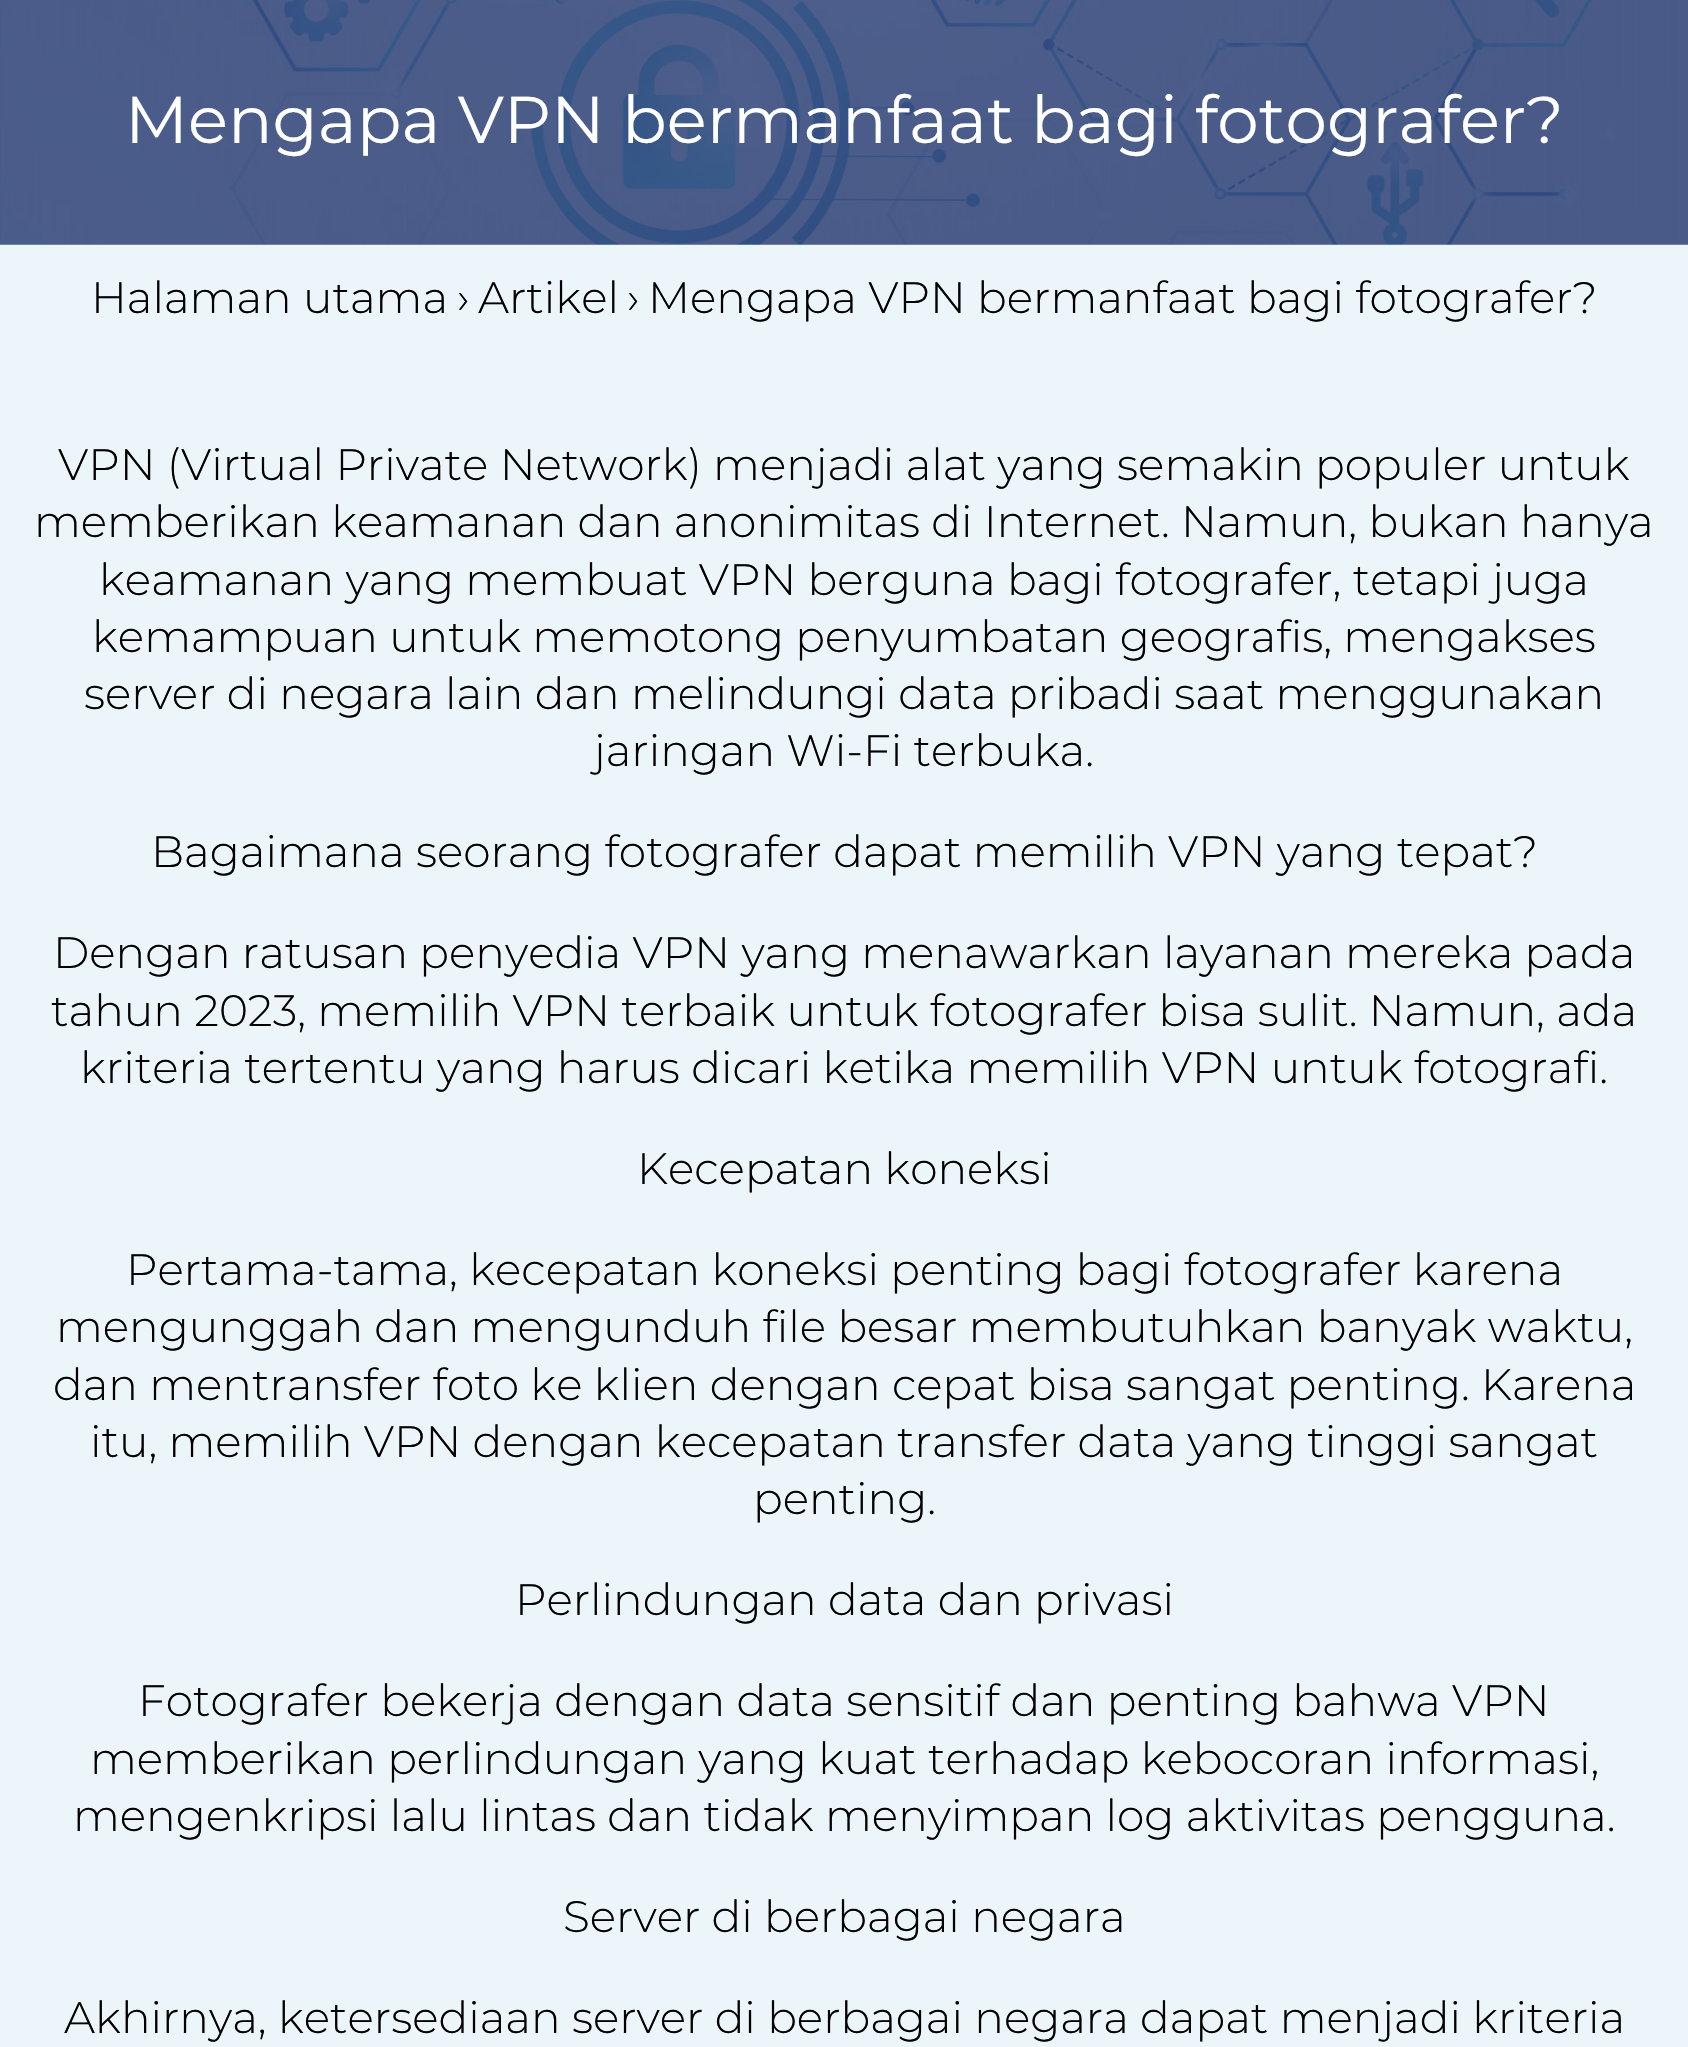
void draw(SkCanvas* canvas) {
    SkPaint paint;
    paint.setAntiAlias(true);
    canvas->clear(0xFFECF5FA);
    canvas->drawImageRect(SkImages::DeferredFromEncodedData(SkData::MakeFromFileName("img1.png")), SkRect::MakeXYWH(0, 0, 1688, 245), SkSamplingOptions());
    SkFont font1(fontMgr->matchFamilyStyle("Montserrat", SkFontStyle::Normal()), 66);
    font1.setSubpixel(true);
    paint.setColor(0xFFFFFFFF);
    canvas->drawString("Mengapa VPN bermanfaat bagi fotografer?", 125, 143, font1, paint);
    SkFont font2(fontMgr->matchFamilyStyle("Montserrat", SkFontStyle(300, SkFontStyle::kNormal_Width, SkFontStyle::kUpright_Slant)), 44);
    font2.setSubpixel(true);
    paint.setColor(0xFF000000);
    canvas->drawString("Halaman utama", 91, 313, font2, paint);
    canvas->drawString("›", 457, 313, font2, paint);
    canvas->drawString("Artikel", 478, 313, font2, paint);
    canvas->drawString("›", 627, 313, font2, paint);
    canvas->drawString("Mengapa VPN bermanfaat bagi fotografer?", 648, 313, font2, paint);
    canvas->drawString("VPN (Virtual Private Network) menjadi alat yang semakin populer untuk", 58, 480, font2, paint);
    canvas->drawString("memberikan keamanan dan anonimitas di Internet. Namun, bukan hanya", 34, 537, font2, paint);
    canvas->drawString("keamanan yang membuat VPN berguna bagi fotografer, tetapi juga", 99, 595, font2, paint);
    canvas->drawString("kemampuan untuk memotong penyumbatan geografis, mengakses", 92, 652, font2, paint);
    canvas->drawString("server di negara lain dan melindungi data pribadi saat menggunakan", 84, 709, font2, paint);
    canvas->drawString("jaringan Wi-Fi terbuka.", 594, 766, font2, paint);
    canvas->drawString("Bagaimana seorang fotografer dapat memilih VPN yang tepat?", 151, 867, font2, paint);
    canvas->drawString("Dengan ratusan penyedia VPN yang menawarkan layanan mereka pada", 53, 968, font2, paint);
    canvas->drawString("tahun 2023, memilih VPN terbaik untuk fotografer bisa sulit. Namun, ada", 51, 1026, font2, paint);
    canvas->drawString("kriteria tertentu yang harus dicari ketika memilih VPN untuk fotografi.", 80, 1083, font2, paint);
    canvas->drawString("Kecepatan koneksi", 637, 1184, font2, paint);
    canvas->drawString("Pertama-tama, kecepatan koneksi penting bagi fotografer karena", 126, 1285, font2, paint);
    canvas->drawString("mengunggah dan mengunduh file besar membutuhkan banyak waktu,", 56, 1342, font2, paint);
    canvas->drawString("dan mentransfer foto ke klien dengan cepat bisa sangat penting. Karena", 53, 1400, font2, paint);
    canvas->drawString("itu, memilih VPN dengan kecepatan transfer data yang tinggi sangat", 90, 1457, font2, paint);
    canvas->drawString("penting.", 753, 1514, font2, paint);
    canvas->drawString("Perlindungan data dan privasi", 515, 1615, font2, paint);
    canvas->drawString("Fotografer bekerja dengan data sensitif dan penting bahwa VPN", 138, 1716, font2, paint);
    canvas->drawString("memberikan perlindungan yang kuat terhadap kebocoran informasi,", 90, 1774, font2, paint);
    canvas->drawString("mengenkripsi lalu lintas dan tidak menyimpan log aktivitas pengguna.", 73, 1831, font2, paint);
    canvas->drawString("Server di berbagai negara", 563, 1932, font2, paint);
    canvas->drawString("Akhirnya, ketersediaan server di berbagai negara dapat menjadi kriteria", 64, 2033, font2, paint);
}
